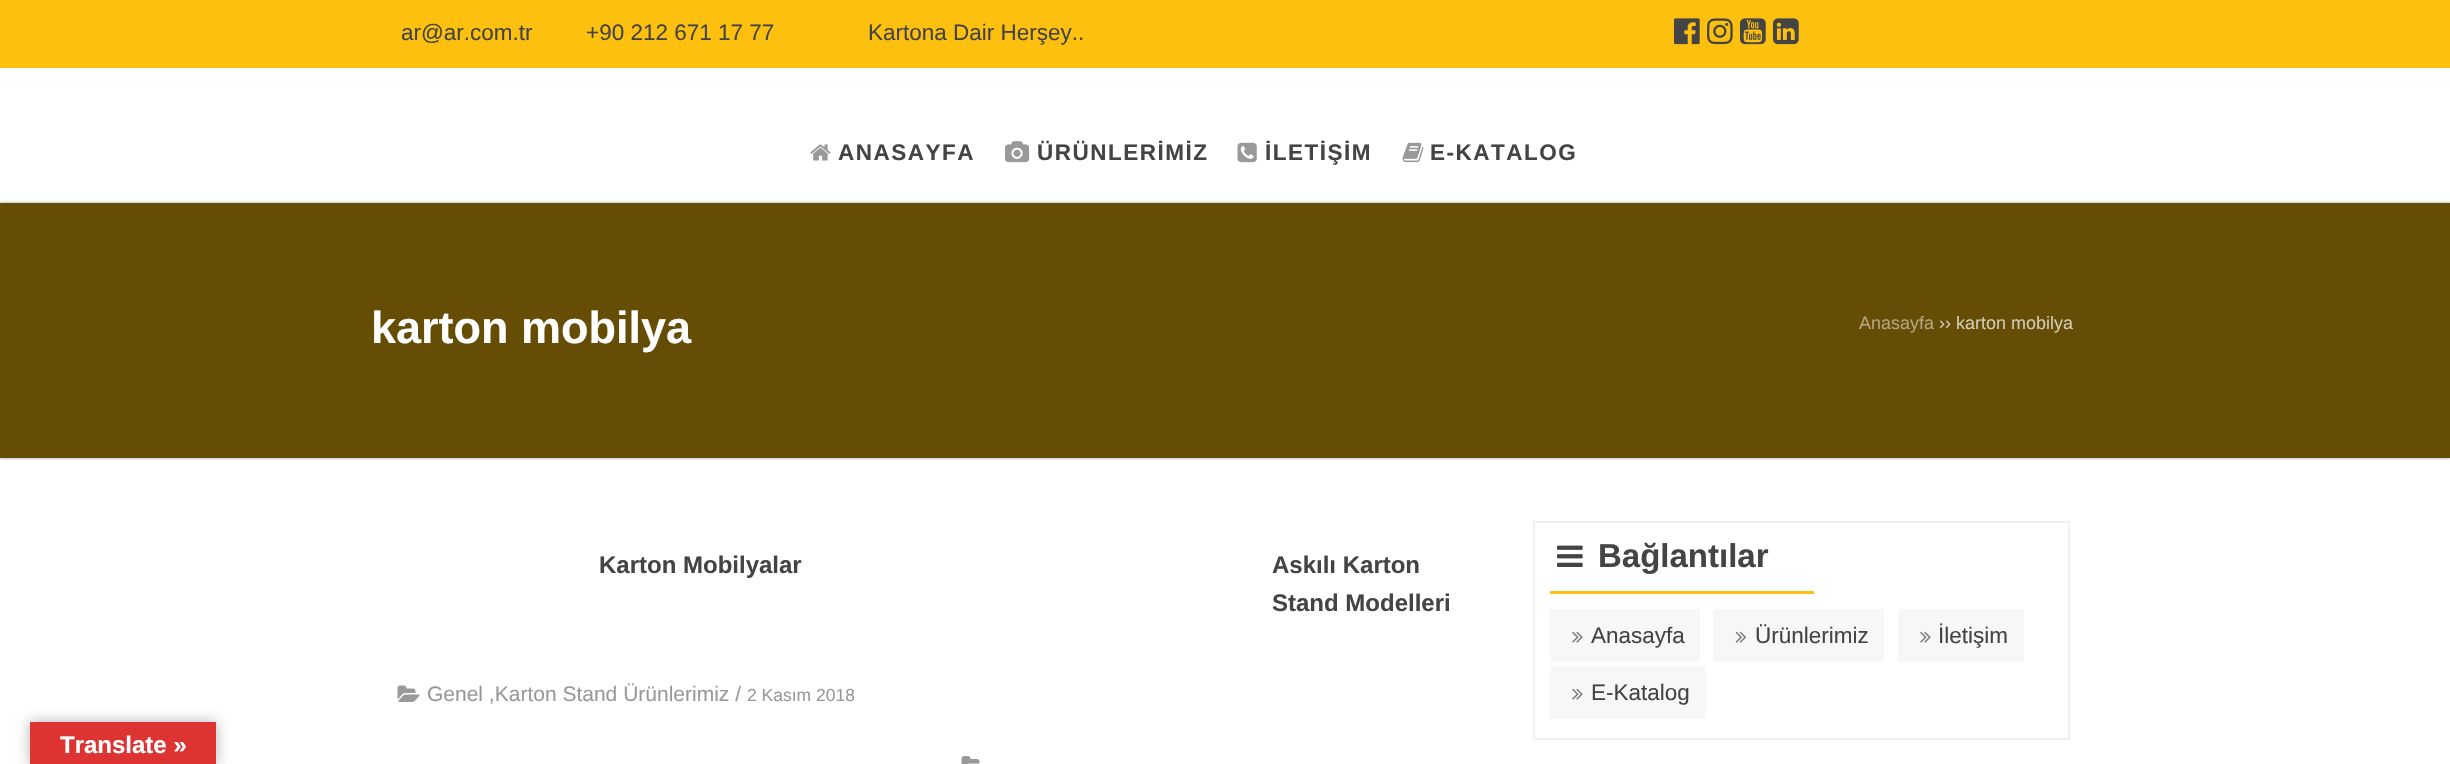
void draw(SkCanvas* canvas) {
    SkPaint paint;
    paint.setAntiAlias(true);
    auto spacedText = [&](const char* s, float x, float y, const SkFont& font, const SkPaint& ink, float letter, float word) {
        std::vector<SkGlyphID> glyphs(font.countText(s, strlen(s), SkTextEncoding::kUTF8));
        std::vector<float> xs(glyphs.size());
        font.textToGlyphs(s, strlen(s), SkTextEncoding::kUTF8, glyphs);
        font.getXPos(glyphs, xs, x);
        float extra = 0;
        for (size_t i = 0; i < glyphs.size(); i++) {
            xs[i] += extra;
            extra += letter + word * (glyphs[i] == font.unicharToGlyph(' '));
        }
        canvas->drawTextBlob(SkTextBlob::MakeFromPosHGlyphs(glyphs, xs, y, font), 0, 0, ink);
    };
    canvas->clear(0xFFFFFFFF);
    paint.setColor(0xFFFEC00F);
    canvas->drawRect(SkRect::MakeXYWH(0, 0, 2450, 68), paint);
    SkFont font1(fontMgr->matchFamilyStyle("Liberation Sans", SkFontStyle::Normal()), 22.5f);
    font1.setSubpixel(true);
    paint.setColor(0xFF444444);
    canvas->drawString("ar@ar.com.tr", 401, 40, font1, paint);
    canvas->drawString("+90 212 671 17 77", 586, 40, font1, paint);
    canvas->drawString("Kartona Dair Herşey..", 868, 40, font1, paint);
    canvas->drawImageRect(SkImages::DeferredFromEncodedData(SkData::MakeFromFileName("img1.png")), SkRect::MakeXYWH(1674, 18, 26, 27), SkSamplingOptions());
    canvas->drawImageRect(SkImages::DeferredFromEncodedData(SkData::MakeFromFileName("img2.png")), SkRect::MakeXYWH(1707, 18, 26, 27), SkSamplingOptions());
    canvas->drawImageRect(SkImages::DeferredFromEncodedData(SkData::MakeFromFileName("img3.png")), SkRect::MakeXYWH(1740, 18, 26, 27), SkSamplingOptions());
    canvas->drawImageRect(SkImages::DeferredFromEncodedData(SkData::MakeFromFileName("img4.png")), SkRect::MakeXYWH(1773, 18, 26, 27), SkSamplingOptions());
    canvas->drawImageRect(SkImages::DeferredFromEncodedData(SkData::MakeFromFileName("img5.png")), SkRect::MakeXYWH(810, 144, 21, 17), SkSamplingOptions());
    SkFont font2(fontMgr->matchFamilyStyle("Liberation Sans", SkFontStyle::Bold()), 22.5f);
    font2.setSubpixel(true);
    spacedText("ANASAYFA", 838, 160, font2, paint, 1.5f, 0);
    canvas->drawImageRect(SkImages::DeferredFromEncodedData(SkData::MakeFromFileName("img6.png")), SkRect::MakeXYWH(1005, 141, 25, 22), SkSamplingOptions());
    spacedText("ÜRÜNLERİMİZ", 1037, 160, font2, paint, 1.5f, 0);
    canvas->drawImageRect(SkImages::DeferredFromEncodedData(SkData::MakeFromFileName("img7.png")), SkRect::MakeXYWH(1237, 142, 20, 21), SkSamplingOptions());
    spacedText("İLETİŞİM", 1265, 160, font2, paint, 1.5f, 0);
    canvas->drawImageRect(SkImages::DeferredFromEncodedData(SkData::MakeFromFileName("img8.png")), SkRect::MakeXYWH(1402, 142, 22, 21), SkSamplingOptions());
    spacedText("E-KATALOG", 1430, 160, font2, paint, 1.5f, 0);
    paint.setColor(0xFFFEC00F);
    canvas->drawRect(SkRect::MakeXYWH(0, 203, 2450, 255), paint);
    canvas->save();
    canvas->clipPath(SkPathBuilder(SkPathFillType::kEvenOdd).moveTo(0, 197).lineTo(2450, 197).lineTo(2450, 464).lineTo(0, 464).close().moveTo(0, 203).lineTo(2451, 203).lineTo(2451, 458).lineTo(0, 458).close().detach(), true);
    paint.setColor(0xFF999999);
    paint.setMaskFilter(SkMaskFilter::MakeBlur(kNormal_SkBlurStyle, 1.5f));
    canvas->drawRect(SkRect::MakeXYWH(0, 203, 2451, 255), paint);
    paint.setMaskFilter(nullptr);
    canvas->restore();
    paint.setColor(0x99000000);
    canvas->drawRect(SkRect::MakeXYWH(0, 203, 2450, 255), paint);
    SkFont font3(fontMgr->matchFamilyStyle("Liberation Sans", SkFontStyle::Bold()), 45);
    font3.setSubpixel(true);
    paint.setColor(0xFFFFFFFF);
    canvas->drawString("karton mobilya", 371, 343, font3, paint);
    SkFont font4(fontMgr->matchFamilyStyle("Liberation Sans", SkFontStyle::Normal()), 18);
    font4.setSubpixel(true);
    paint.setColor(0xFFB1A480);
    canvas->drawString("Anasayfa", 1859, 329, font4, paint);
    paint.setColor(0xFFD1CAB4);
    canvas->drawString("›› karton mobilya", 1939, 329, font4, paint);
    SkFont font5(fontMgr->matchFamilyStyle("Liberation Sans", SkFontStyle::Bold()), 24);
    font5.setSubpixel(true);
    paint.setColor(0xFF444444);
    canvas->drawString("Karton Mobilyalar", 599, 573, font5, paint);
    canvas->drawImageRect(SkImages::DeferredFromEncodedData(SkData::MakeFromFileName("img9.png")), SkRect::MakeXYWH(397, 685, 23, 17), SkSamplingOptions());
    SkFont font6(fontMgr->matchFamilyStyle("Liberation Sans", SkFontStyle::Normal()), 21);
    font6.setSubpixel(true);
    paint.setColor(0xFF999999);
    canvas->drawString("Genel ,Karton Stand Ürünlerimiz /", 427, 701, font6, paint);
    SkFont font7(fontMgr->matchFamilyStyle("Liberation Sans", SkFontStyle::Normal()), 17.5f);
    font7.setSubpixel(true);
    canvas->drawString("2 Kasım 2018", 747, 701, font7, paint);
    paint.setColor(0xFF444444);
    canvas->drawString("Askılı Karton", 1272, 573, font5, paint);
    canvas->drawString("Stand Modelleri", 1272, 611, font5, paint);
    canvas->drawImageRect(SkImages::DeferredFromEncodedData(SkData::MakeFromFileName("img10.png")), SkRect::MakeXYWH(961, 756, 19, 8), SkSamplingOptions());
    paint.setStyle(SkPaint::kStroke_Style);
    paint.setStrokeWidth(2);
    paint.setColor(0xFFF0F0F0);
    canvas->drawRect(SkRect::MakeXYWH(1534, 522, 535, 217), paint);
    paint.setStyle(SkPaint::kFill_Style);
    paint.setColor(0xFFFEC00F);
    canvas->drawRect(SkRect::MakeXYWH(1550, 591, 264, 3), paint);
    canvas->drawImageRect(SkImages::DeferredFromEncodedData(SkData::MakeFromFileName("img11.png")), SkRect::MakeXYWH(1557, 545, 26, 22), SkSamplingOptions());
    SkFont font8(fontMgr->matchFamilyStyle("Liberation Sans", SkFontStyle::Bold()), 33);
    font8.setSubpixel(true);
    paint.setColor(0xFF444444);
    canvas->drawString("Bağlantılar", 1598, 567, font8, paint);
    paint.setColor(0xFFF7F7F7);
    canvas->drawRect(SkRect::MakeXYWH(1550, 609, 150, 53), paint);
    canvas->drawImageRect(SkImages::DeferredFromEncodedData(SkData::MakeFromFileName("img12.png")), SkRect::MakeXYWH(1572, 631, 11, 12), SkSamplingOptions());
    paint.setColor(0xFF444444);
    canvas->drawString("Anasayfa", 1591, 643, font1, paint);
    paint.setColor(0xFFF7F7F7);
    canvas->drawRect(SkRect::MakeXYWH(1713, 609, 171, 53), paint);
    canvas->drawImageRect(SkImages::DeferredFromEncodedData(SkData::MakeFromFileName("img13.png")), SkRect::MakeXYWH(1735, 631, 12, 12), SkSamplingOptions());
    paint.setColor(0xFF444444);
    canvas->drawString("Ürünlerimiz", 1755, 643, font1, paint);
    paint.setColor(0xFFF7F7F7);
    canvas->drawRect(SkRect::MakeXYWH(1898, 609, 126, 53), paint);
    canvas->drawImageRect(SkImages::DeferredFromEncodedData(SkData::MakeFromFileName("img12.png")), SkRect::MakeXYWH(1920, 631, 11, 12), SkSamplingOptions());
    paint.setColor(0xFF444444);
    canvas->drawString("İletişim", 1938, 643, font1, paint);
    paint.setColor(0xFFF7F7F7);
    canvas->drawRect(SkRect::MakeXYWH(1550, 666, 156, 53), paint);
    canvas->drawImageRect(SkImages::DeferredFromEncodedData(SkData::MakeFromFileName("img12.png")), SkRect::MakeXYWH(1572, 688, 11, 12), SkSamplingOptions());
    paint.setColor(0xFF444444);
    canvas->drawString("E-Katalog", 1591, 700, font1, paint);
    paint.setColor(0x4D000000);
    paint.setMaskFilter(SkMaskFilter::MakeBlur(kNormal_SkBlurStyle, 7));
    canvas->drawRect(SkRect::MakeXYWH(30, 722, 186, 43), paint);
    paint.setMaskFilter(nullptr);
    paint.setColor(0xFFDD3333);
    canvas->drawRect(SkRect::MakeXYWH(30, 722, 186, 42), paint);
    paint.setColor(0xFFFFFFFF);
    canvas->drawString("Translate »", 60, 753, font5, paint);
}
